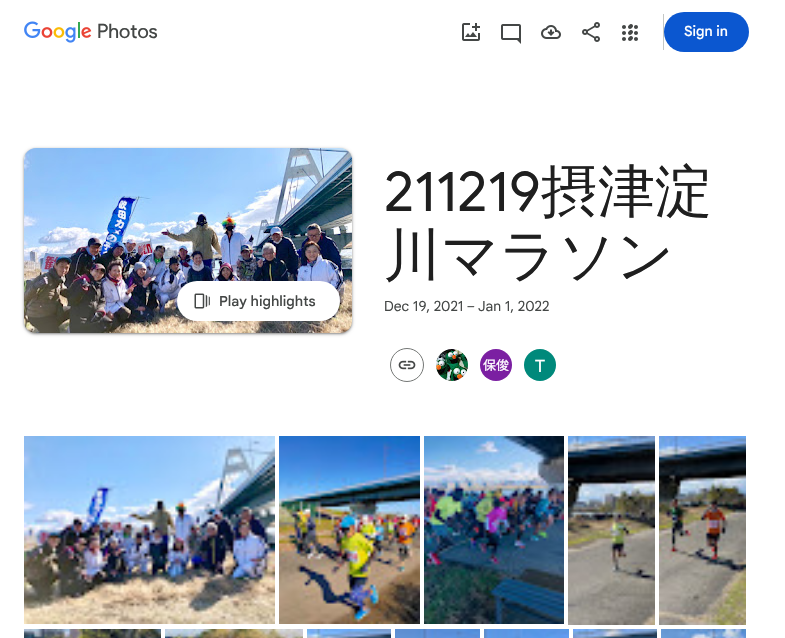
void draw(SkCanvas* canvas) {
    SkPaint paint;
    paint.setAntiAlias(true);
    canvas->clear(0xFFFFFFFF);
    canvas->drawImageRect(SkImages::DeferredFromEncodedData(SkData::MakeFromFileName("img1.png")), SkRect::MakeXYWH(24, 21, 68, 22), SkSamplingOptions());
    SkFont font1(fontMgr->matchFamilyStyle("Product Sans", SkFontStyle::Normal()), 20);
    font1.setSubpixel(true);
    paint.setColor(0xFF444746);
    canvas->drawString("Photos", 97, 38, font1, paint);
    canvas->drawImageRect(SkImages::DeferredFromEncodedData(SkData::MakeFromFileName("img2.png")), SkRect::MakeXYWH(462, 23, 18, 18), SkSamplingOptions());
    canvas->drawImageRect(SkImages::DeferredFromEncodedData(SkData::MakeFromFileName("img3.png")), SkRect::MakeXYWH(501, 24, 20, 20), SkSamplingOptions());
    canvas->drawImageRect(SkImages::DeferredFromEncodedData(SkData::MakeFromFileName("img4.png")), SkRect::MakeXYWH(541, 25, 20, 14), SkSamplingOptions());
    canvas->drawImageRect(SkImages::DeferredFromEncodedData(SkData::MakeFromFileName("img5.png")), SkRect::MakeXYWH(582, 22, 18, 20), SkSamplingOptions());
    canvas->drawImageRect(SkImages::DeferredFromEncodedData(SkData::MakeFromFileName("img6.png")), SkRect::MakeXYWH(629, 24, 4, 16), SkSamplingOptions());
    paint.setColor(0xFFC4C7C5);
    canvas->drawRect(SkRect::MakeXYWH(663, 14, 1, 36), paint);
    paint.setColor(0x26000000);
    paint.setMaskFilter(SkMaskFilter::MakeBlur(kNormal_SkBlurStyle, 1.5f));
    canvas->drawRoundRect(SkRect::MakeXYWH(23, 148, 330, 187), 13, 13, paint);
    paint.setMaskFilter(nullptr);
    paint.setColor(0x4D000000);
    paint.setMaskFilter(SkMaskFilter::MakeBlur(kNormal_SkBlurStyle, 1));
    canvas->drawRoundRect(SkRect::MakeXYWH(24, 149, 328, 185), 12, 12, paint);
    paint.setMaskFilter(nullptr);
    canvas->drawImageRect(SkImages::DeferredFromEncodedData(SkData::MakeFromFileName("img7.png")), SkRect::MakeXYWH(24, 148, 328, 185), SkSamplingOptions());
    paint.setColor(0xFFFFFFFF);
    canvas->drawRoundRect(SkRect::MakeXYWH(177, 281, 163, 40), 20, 20, paint);
    canvas->drawImageRect(SkImages::DeferredFromEncodedData(SkData::MakeFromFileName("img8.png")), SkRect::MakeXYWH(194, 293, 16, 16), SkSamplingOptions());
    SkFont font2(fontMgr->matchFamilyStyle("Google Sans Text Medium", SkFontStyle(500, SkFontStyle::kNormal_Width, SkFontStyle::kUpright_Slant)), 14);
    font2.setSubpixel(true);
    paint.setColor(0xFF444746);
    canvas->drawString("Play highlights", 219, 306, font2, paint);
    SkFont font3(fontMgr->matchFamilyStyle("Google Sans", SkFontStyle::Normal()), 57);
    font3.setSubpixel(true);
    paint.setColor(0xFF1F1F1F);
    canvas->drawString("211219", 384, 211, font3, paint);
    SkFont font4(fontMgr->matchFamilyStyle("WenQuanYi Zen Hei", SkFontStyle(500, SkFontStyle::kNormal_Width, SkFontStyle::kUpright_Slant)), 57);
    font4.setSubpixel(true);
    canvas->drawString("摂津淀", 541, 211, font4, paint);
    canvas->drawString("川マラソン", 384, 275, font4, paint);
    SkFont font5(fontMgr->matchFamilyStyle("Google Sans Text", SkFontStyle::Normal()), 14);
    font5.setSubpixel(true);
    paint.setColor(0xFF444746);
    canvas->drawString("Dec 19, 2021 – Jan 1, 2022", 384, 311, font5, paint);
    paint.setStyle(SkPaint::kStroke_Style);
    paint.setStrokeWidth(1);
    paint.setColor(0xFF747775);
    canvas->drawCircle(407, 365, 16.5f, paint);
    canvas->drawImageRect(SkImages::DeferredFromEncodedData(SkData::MakeFromFileName("img9.png")), SkRect::MakeXYWH(398, 360, 18, 10), SkSamplingOptions());
    canvas->drawImageRect(SkImages::DeferredFromEncodedData(SkData::MakeFromFileName("img10.png")), SkRect::MakeXYWH(436, 349, 32, 32), SkSamplingOptions());
    canvas->drawImageRect(SkImages::DeferredFromEncodedData(SkData::MakeFromFileName("img11.png")), SkRect::MakeXYWH(480, 349, 32, 32), SkSamplingOptions());
    canvas->drawImageRect(SkImages::DeferredFromEncodedData(SkData::MakeFromFileName("img12.png")), SkRect::MakeXYWH(524, 349, 32, 32), SkSamplingOptions());
    canvas->drawImageRect(SkImages::DeferredFromEncodedData(SkData::MakeFromFileName("img13.png")), SkRect::MakeXYWH(24, 436, 251, 188), SkSamplingOptions());
    canvas->drawImageRect(SkImages::DeferredFromEncodedData(SkData::MakeFromFileName("img14.png")), SkRect::MakeXYWH(279, 436, 141, 188), SkSamplingOptions());
    canvas->drawImageRect(SkImages::DeferredFromEncodedData(SkData::MakeFromFileName("img15.png")), SkRect::MakeXYWH(424, 436, 140, 188), SkSamplingOptions());
    canvas->drawImageRect(SkImages::DeferredFromEncodedData(SkData::MakeFromFileName("img16.png")), SkRect::MakeXYWH(568, 436, 87, 189), SkSamplingOptions());
    canvas->drawImageRect(SkImages::DeferredFromEncodedData(SkData::MakeFromFileName("img17.png")), SkRect::MakeXYWH(659, 436, 87, 189), SkSamplingOptions());
    canvas->drawImageRect(SkImages::DeferredFromEncodedData(SkData::MakeFromFileName("img18.png")), SkRect::MakeXYWH(24, 629, 137, 9), SkSamplingOptions());
    canvas->drawImageRect(SkImages::DeferredFromEncodedData(SkData::MakeFromFileName("img19.png")), SkRect::MakeXYWH(165, 629, 138, 9), SkSamplingOptions());
    canvas->drawImageRect(SkImages::DeferredFromEncodedData(SkData::MakeFromFileName("img20.png")), SkRect::MakeXYWH(307, 629, 84, 9), SkSamplingOptions());
    canvas->drawImageRect(SkImages::DeferredFromEncodedData(SkData::MakeFromFileName("img21.png")), SkRect::MakeXYWH(395, 629, 85, 9), SkSamplingOptions());
    canvas->drawImageRect(SkImages::DeferredFromEncodedData(SkData::MakeFromFileName("img22.png")), SkRect::MakeXYWH(484, 629, 85, 9), SkSamplingOptions());
    canvas->drawImageRect(SkImages::DeferredFromEncodedData(SkData::MakeFromFileName("img23.png")), SkRect::MakeXYWH(573, 629, 84, 9), SkSamplingOptions());
    canvas->drawImageRect(SkImages::DeferredFromEncodedData(SkData::MakeFromFileName("img24.png")), SkRect::MakeXYWH(661, 629, 85, 9), SkSamplingOptions());
    canvas->drawImageRect(SkImages::DeferredFromEncodedData(SkData::MakeFromFileName("img25.png")), SkRect::MakeXYWH(622, 25, 16, 16), SkSamplingOptions());
    paint.setStyle(SkPaint::kFill_Style);
    paint.setColor(0xFF0B57D0);
    canvas->drawRoundRect(SkRect::MakeXYWH(664, 12, 85, 40), 20, 20, paint);
    paint.setColor(0xFFFFFFFF);
    canvas->drawString("Sign in", 684, 36, font2, paint);
}
